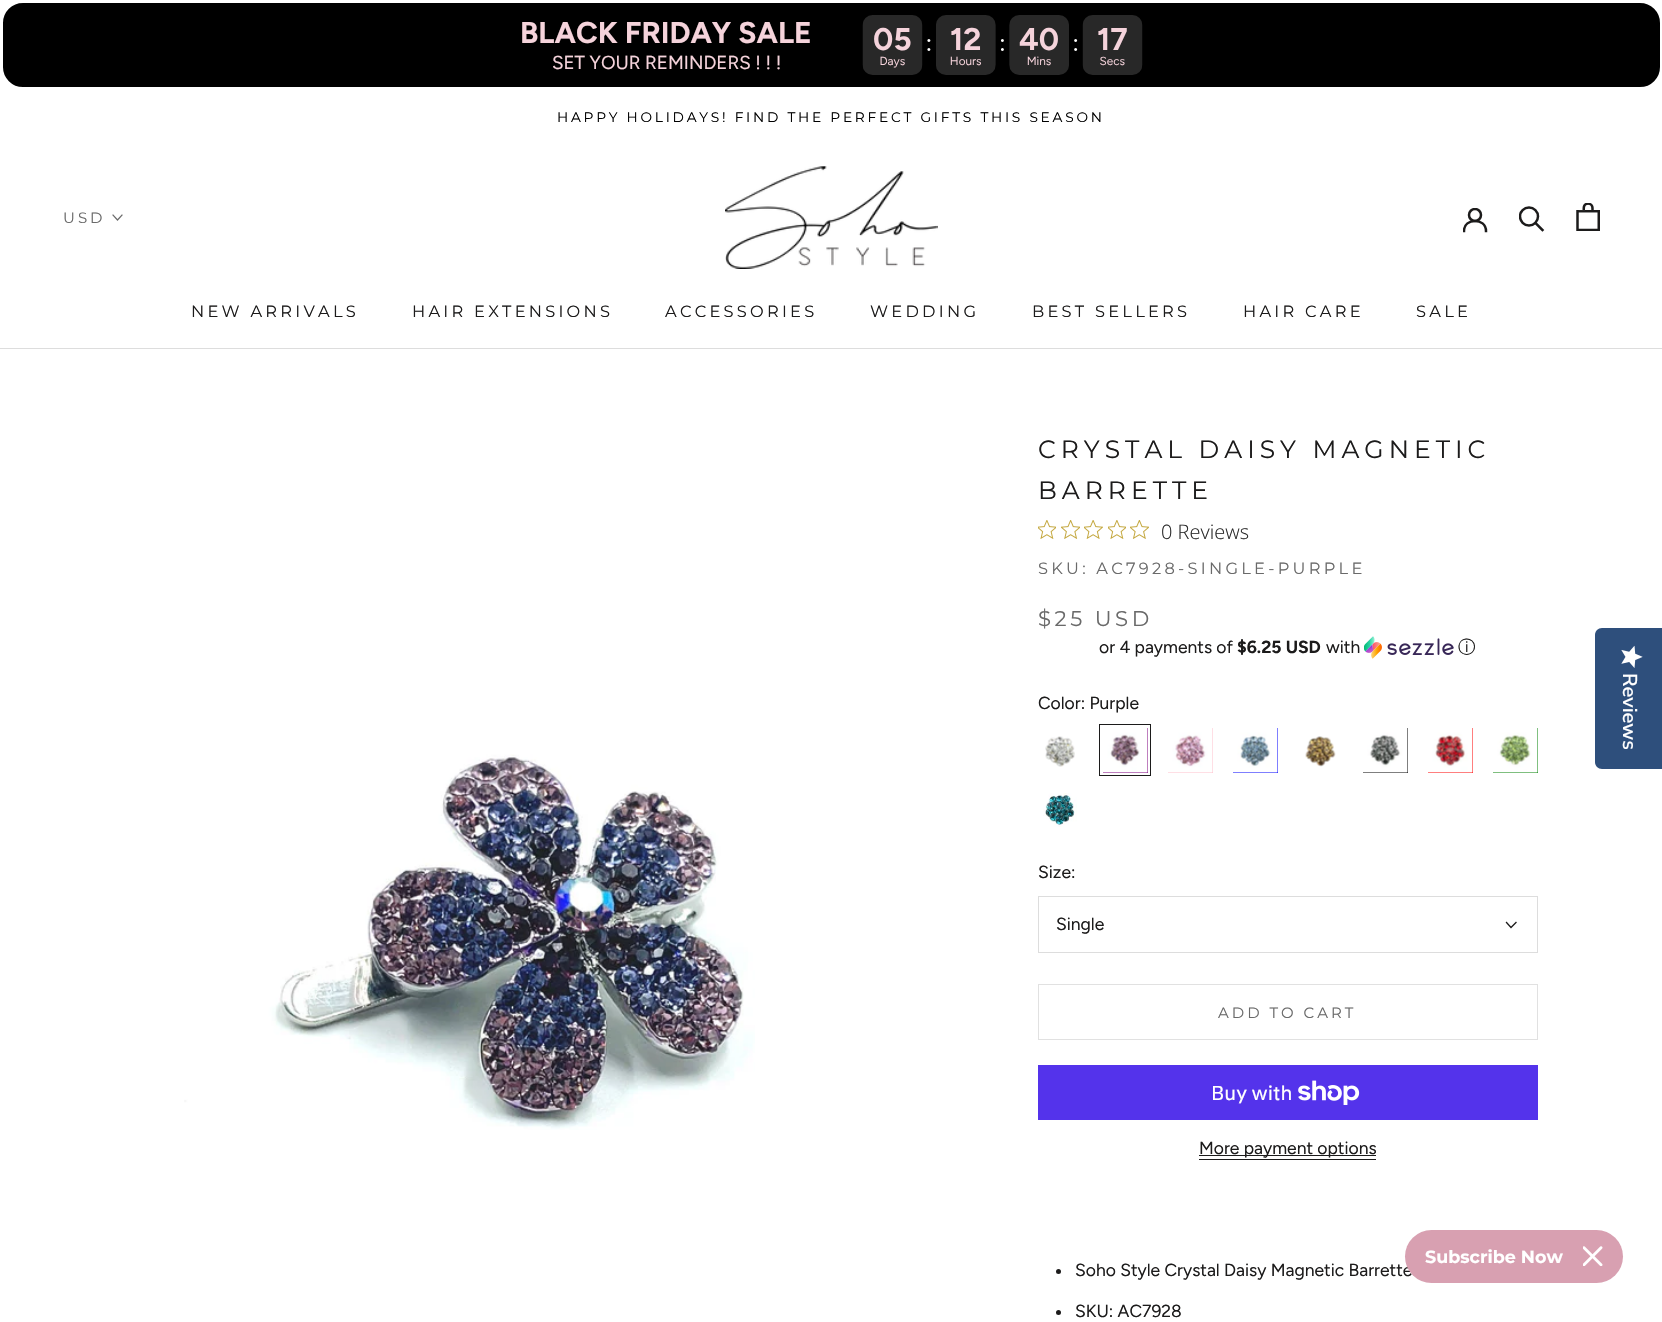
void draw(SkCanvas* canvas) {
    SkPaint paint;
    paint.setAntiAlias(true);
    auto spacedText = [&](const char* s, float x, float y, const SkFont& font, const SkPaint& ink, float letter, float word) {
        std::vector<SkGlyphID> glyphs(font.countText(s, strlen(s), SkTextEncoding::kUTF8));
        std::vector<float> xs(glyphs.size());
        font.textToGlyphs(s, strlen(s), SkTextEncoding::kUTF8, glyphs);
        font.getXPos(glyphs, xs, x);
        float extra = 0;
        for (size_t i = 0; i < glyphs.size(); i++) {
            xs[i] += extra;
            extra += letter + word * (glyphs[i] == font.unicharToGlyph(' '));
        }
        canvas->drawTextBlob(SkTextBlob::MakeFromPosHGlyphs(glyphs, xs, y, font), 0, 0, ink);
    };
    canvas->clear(0xFFFFFFFF);
    paint.setColor(0xFF000000);
    canvas->drawRoundRect(SkRect::MakeXYWH(1.5f, 1.5f, 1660, 87), 21.5f, 21.5f, paint);
    paint.setStyle(SkPaint::kStroke_Style);
    paint.setStrokeWidth(3);
    paint.setColor(0xFFFFFFFF);
    canvas->drawRoundRect(SkRect::MakeXYWH(1.5f, 1.5f, 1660, 87), 21.5f, 21.5f, paint);
    SkFont font1(fontMgr->matchFamilyStyle("Figtree", SkFontStyle::Bold()), 30);
    font1.setSubpixel(true);
    paint.setStyle(SkPaint::kFill_Style);
    paint.setColor(0xFFF5D3DB);
    canvas->drawString("BLACK FRIDAY SALE", 520, 43, font1, paint);
    SkFont font2(fontMgr->matchFamilyStyle("Figtree", SkFontStyle::Normal()), 18.75f);
    font2.setSubpixel(true);
    canvas->drawString("SET YOUR REMINDERS ! ! !", 552, 69, font2, paint);
    canvas->drawImageRect(SkImages::DeferredFromEncodedData(SkData::MakeFromFileName("img1.png")), SkRect::MakeXYWH(862, 15, 281, 60), SkSamplingOptions());
    SkFont font3(fontMgr->matchFamilyStyle("Montserrat", SkFontStyle::Normal()), 13.75f);
    font3.setSubpixel(true);
    paint.setColor(0xFF000000);
    spacedText("HAPPY HOLIDAYS! FIND THE PERFECT GIFTS THIS SEASON", 557, 122, font3, paint, 2.75f, 0);
    paint.setColor(0xFFDDDDDD);
    canvas->drawRect(SkRect::MakeXYWH(0, 348, 1662, 1), paint);
    canvas->drawImageRect(SkImages::DeferredFromEncodedData(SkData::MakeFromFileName("img2.png")), SkRect::MakeXYWH(725, 166, 213, 103), SkSamplingOptions());
    canvas->save();
    canvas->clipRect(SkRect::MakeXYWH(1463, 208, 25, 25));
    paint.setStyle(SkPaint::kStroke_Style);
    paint.setStrokeWidth(2.5f);
    paint.setStrokeCap(SkPaint::kSquare_Cap);
    paint.setColor(0xFF1C1B1B);
    canvas->drawPath(SkPathBuilder().moveTo(1464, 231).cubicTo(1464, 217.5f, 1486, 217.5f, 1486, 231).detach(), paint);
    paint.setStrokeCap(SkPaint::kButt_Cap);
    canvas->drawCircle(1475, 215, 6, paint);
    canvas->restore();
    paint.setStrokeCap(SkPaint::kSquare_Cap);
    canvas->drawPath(SkPathBuilder().moveTo(1542.5f, 230).lineTo(1535.5f, 223).detach(), paint);
    canvas->save();
    canvas->clipRect(SkRect::MakeXYWH(1519, 206, 26, 27));
    paint.setStrokeCap(SkPaint::kButt_Cap);
    canvas->drawCircle(1529, 216.5f, 9, paint);
    canvas->restore();
    canvas->drawImageRect(SkImages::DeferredFromEncodedData(SkData::MakeFromFileName("img3.png")), SkRect::MakeXYWH(1576, 203, 24, 28), SkSamplingOptions());
    SkFont font4(fontMgr->matchFamilyStyle("Montserrat", SkFontStyle::Normal()), 15);
    font4.setSubpixel(true);
    paint.setStyle(SkPaint::kFill_Style);
    paint.setColor(0xFF6A6A6A);
    spacedText("USD", 63, 223, font4, paint, 3, 0);
    paint.setStyle(SkPaint::kStroke_Style);
    paint.setStrokeWidth(1.2f);
    paint.setStrokeCap(SkPaint::kSquare_Cap);
    canvas->drawPath(SkPathBuilder().moveTo(122, 215).lineTo(117.5f, 220).lineTo(113, 215).detach(), paint);
    SkFont font5(fontMgr->matchFamilyStyle("Montserrat", SkFontStyle::Normal()), 16.25f);
    font5.setSubpixel(true);
    paint.setStyle(SkPaint::kFill_Style);
    paint.setColor(0xFF1C1B1B);
    spacedText("NEW ARRIVALS", 191, 317, font5, paint, 3.25f, 0);
    spacedText("HAIR EXTENSIONS", 412, 317, font5, paint, 3.25f, 0);
    spacedText("ACCESSORIES", 665, 317, font5, paint, 3.25f, 0);
    spacedText("WEDDING", 870, 317, font5, paint, 3.25f, 0);
    spacedText("BEST SELLERS", 1032, 317, font5, paint, 3.25f, 0);
    spacedText("HAIR CARE", 1243, 317, font5, paint, 3.25f, 0);
    spacedText("SALE", 1416, 317, font5, paint, 3.25f, 0);
    canvas->drawImageRect(SkImages::DeferredFromEncodedData(SkData::MakeFromFileName("img4.png")), SkRect::MakeXYWH(184, 754, 571, 376), SkSamplingOptions());
    SkFont font6(fontMgr->matchFamilyStyle("Montserrat", SkFontStyle::Normal()), 25);
    font6.setSubpixel(true);
    spacedText("CRYSTAL DAISY MAGNETIC", 1038, 458, font6, paint, 5, 0);
    spacedText("BARRETTE", 1038, 499, font6, paint, 5, 0);
    canvas->drawImageRect(SkImages::DeferredFromEncodedData(SkData::MakeFromFileName("img5.png")), SkRect::MakeXYWH(1038, 520, 18, 19), SkSamplingOptions());
    canvas->drawImageRect(SkImages::DeferredFromEncodedData(SkData::MakeFromFileName("img6.png")), SkRect::MakeXYWH(1061, 520, 19, 19), SkSamplingOptions());
    canvas->drawImageRect(SkImages::DeferredFromEncodedData(SkData::MakeFromFileName("img7.png")), SkRect::MakeXYWH(1084, 520, 19, 19), SkSamplingOptions());
    canvas->drawImageRect(SkImages::DeferredFromEncodedData(SkData::MakeFromFileName("img5.png")), SkRect::MakeXYWH(1108, 520, 18, 19), SkSamplingOptions());
    canvas->drawImageRect(SkImages::DeferredFromEncodedData(SkData::MakeFromFileName("img8.png")), SkRect::MakeXYWH(1130, 520, 19, 19), SkSamplingOptions());
    SkFont font7(fontMgr->matchFamilyStyle("Open Sans", SkFontStyle(300, SkFontStyle::kNormal_Width, SkFontStyle::kUpright_Slant)), 20);
    font7.setSubpixel(true);
    paint.setColor(0xFF2C2C2C);
    canvas->drawString("0 Reviews", 1161, 539, font7, paint);
    paint.setColor(0xFF6A6A6A);
    spacedText("SKU: AC7928-SINGLE-PURPLE", 1038, 574, font5, paint, 3.25f, 0);
    SkFont font8(fontMgr->matchFamilyStyle("Montserrat", SkFontStyle::Normal()), 21.25f);
    font8.setSubpixel(true);
    spacedText("$25 USD", 1038, 626, font8, paint, 3.5f, 0);
    SkFont font9(fontMgr->matchFamilyStyle("Figtree", SkFontStyle::Normal()), 17.5f);
    font9.setSubpixel(true);
    paint.setColor(0xFF1C1B1B);
    canvas->drawString("or 4 payments of", 1099, 653, font9, paint);
    SkFont font10(fontMgr->matchFamilyStyle("Figtree", SkFontStyle::Bold()), 17.5f);
    font10.setSubpixel(true);
    canvas->drawString("$6.25 USD", 1237, 653, font10, paint);
    canvas->drawString("with", 1326, 653, font9, paint);
    canvas->drawImageRect(SkImages::DeferredFromEncodedData(SkData::MakeFromFileName("img9.png")), SkRect::MakeXYWH(1364, 636, 90, 23), SkSamplingOptions());
    SkFont font11(fontMgr->matchFamilyStyle("WenQuanYi Zen Hei", SkFontStyle(500, SkFontStyle::kNormal_Width, SkFontStyle::kUpright_Slant)), 17.5f);
    font11.setSubpixel(true);
    canvas->drawString("ⓘ", 1458, 653, font11, paint);
    canvas->drawString("Color: Purple", 1038, 709, font9, paint);
    canvas->drawImageRect(SkImages::DeferredFromEncodedData(SkData::MakeFromFileName("img10.png")), SkRect::MakeXYWH(1045, 736, 30, 31), SkSamplingOptions());
    paint.setColor(0xFF800080);
    canvas->drawRect(SkRect::MakeXYWH(1103, 728, 45, 45), paint);
    canvas->drawImageRect(SkImages::DeferredFromEncodedData(SkData::MakeFromFileName("img11.png")), SkRect::MakeXYWH(1103, 728, 45, 45), SkSamplingOptions());
    paint.setStyle(SkPaint::kStroke_Style);
    paint.setStrokeWidth(1);
    paint.setStrokeCap(SkPaint::kButt_Cap);
    paint.setColor(0xFF1C1B1B);
    canvas->drawRect(SkRect::MakeXYWH(1099.5f, 724.5f, 51, 51), paint);
    paint.setStyle(SkPaint::kFill_Style);
    paint.setColor(0xFFFFC0CB);
    canvas->drawRect(SkRect::MakeXYWH(1168, 728, 45, 45), paint);
    canvas->drawImageRect(SkImages::DeferredFromEncodedData(SkData::MakeFromFileName("img12.png")), SkRect::MakeXYWH(1168, 728, 45, 45), SkSamplingOptions());
    paint.setColor(0xFF0000FF);
    canvas->drawRect(SkRect::MakeXYWH(1233, 728, 45, 45), paint);
    canvas->drawImageRect(SkImages::DeferredFromEncodedData(SkData::MakeFromFileName("img13.png")), SkRect::MakeXYWH(1233, 728, 45, 45), SkSamplingOptions());
    canvas->drawImageRect(SkImages::DeferredFromEncodedData(SkData::MakeFromFileName("img14.png")), SkRect::MakeXYWH(1305, 736, 31, 31), SkSamplingOptions());
    paint.setColor(0xFF000000);
    canvas->drawRect(SkRect::MakeXYWH(1363, 728, 45, 45), paint);
    canvas->drawImageRect(SkImages::DeferredFromEncodedData(SkData::MakeFromFileName("img15.png")), SkRect::MakeXYWH(1363, 728, 45, 45), SkSamplingOptions());
    paint.setColor(0xFFFF0000);
    canvas->drawRect(SkRect::MakeXYWH(1428, 728, 45, 45), paint);
    canvas->drawImageRect(SkImages::DeferredFromEncodedData(SkData::MakeFromFileName("img16.png")), SkRect::MakeXYWH(1428, 728, 45, 45), SkSamplingOptions());
    paint.setColor(0xFF008000);
    canvas->drawRect(SkRect::MakeXYWH(1493, 728, 45, 45), paint);
    canvas->drawImageRect(SkImages::DeferredFromEncodedData(SkData::MakeFromFileName("img17.png")), SkRect::MakeXYWH(1493, 728, 45, 45), SkSamplingOptions());
    canvas->drawImageRect(SkImages::DeferredFromEncodedData(SkData::MakeFromFileName("img18.png")), SkRect::MakeXYWH(1043, 793, 34, 34), SkSamplingOptions());
    paint.setColor(0xFF1C1B1B);
    canvas->drawString("Size:", 1038, 878, font9, paint);
    paint.setStyle(SkPaint::kStroke_Style);
    paint.setColor(0xFFDDDDDD);
    canvas->drawRect(SkRect::MakeXYWH(1038.5f, 896.5f, 499, 56), paint);
    paint.setStyle(SkPaint::kFill_Style);
    paint.setColor(0xFF1C1B1B);
    canvas->drawString("Single", 1056, 930, font9, paint);
    paint.setStyle(SkPaint::kStroke_Style);
    paint.setStrokeWidth(1.3f);
    paint.setStrokeCap(SkPaint::kSquare_Cap);
    canvas->drawPath(SkPathBuilder().moveTo(1516, 922.5f).lineTo(1511, 927.5f).lineTo(1506.5f, 922.5f).detach(), paint);
    paint.setStrokeWidth(1);
    paint.setStrokeCap(SkPaint::kButt_Cap);
    paint.setColor(0xFFE1E1E1);
    canvas->drawRect(SkRect::MakeXYWH(1038.5f, 984.5f, 499, 55), paint);
    paint.setStyle(SkPaint::kFill_Style);
    paint.setColor(0xFF6A6A6A);
    spacedText("ADD TO CART", 1218, 1018, font4, paint, 3, 0);
    paint.setColor(0xFF5433EB);
    canvas->drawRect(SkRect::MakeXYWH(1038, 1065, 500, 55), paint);
    SkFont font12(fontMgr->matchFamilyStyle("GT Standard", SkFontStyle::Normal()), 20);
    font12.setSubpixel(true);
    paint.setColor(0xFFFFFFFF);
    canvas->drawString("Buy with", 1211, 1100, font12, paint);
    canvas->drawImageRect(SkImages::DeferredFromEncodedData(SkData::MakeFromFileName("img19.png")), SkRect::MakeXYWH(1298, 1080, 62, 25), SkSamplingOptions());
    paint.setColor(0xFF1C1B1B);
    canvas->drawRect(SkRect::MakeXYWH(1199, 1155, 177, 1), paint);
    canvas->drawString("More payment options", 1199, 1154, font9, paint);
    canvas->drawRect(SkRect::MakeXYWH(1199, 1159, 177, 1), paint);
    canvas->drawCircle(1058.5f, 1271.5f, 2.5f, paint);
    canvas->drawString("Soho Style Crystal Daisy Magnetic Barrette", 1075, 1276, font9, paint);
    canvas->drawCircle(1058.5f, 1312.5f, 2.5f, paint);
    canvas->drawString("SKU: AC7928", 1075, 1317, font9, paint);
    paint.setColor(0xFF2E4F7C);
    canvas->drawPath(SkPathBuilder().moveTo(1662, 628).lineTo(1662, 769).lineTo(1602, 769).cubicTo(1598, 769, 1595, 766, 1595, 762).lineTo(1595, 635).cubicTo(1595, 631, 1598, 628, 1602, 628).close().detach(), paint);
    canvas->drawImageRect(SkImages::DeferredFromEncodedData(SkData::MakeFromFileName("img20.png")), SkRect::MakeXYWH(1621, 645, 22, 23), SkSamplingOptions());
    SkFont font13(fontMgr->matchFamilyStyle("Nunito Sans", SkFontStyle(200, SkFontStyle::kNormal_Width, SkFontStyle::kUpright_Slant)), 20);
    font13.setSubpixel(true);
    paint.setColor(0xFFFFFFFF);
    canvas->save();
    canvas->rotate(90, 1623, 673);
    canvas->drawString("Reviews", 1623, 673, font13, paint);
    canvas->restore();
    paint.setColor(0xFFD8A0B1);
    canvas->drawRoundRect(SkRect::MakeXYWH(1405, 1230, 218, 53), 26.5f, 26.5f, paint);
    SkFont font14(fontMgr->matchFamilyStyle("Montserrat", SkFontStyle::Bold()), 17.5f);
    font14.setSubpixel(true);
    paint.setColor(0xFFFFFFFF);
    canvas->drawString("Subscribe Now", 1425, 1263, font14, paint);
    canvas->drawImageRect(SkImages::DeferredFromEncodedData(SkData::MakeFromFileName("img21.png")), SkRect::MakeXYWH(1583, 1246, 20, 20), SkSamplingOptions());
}
